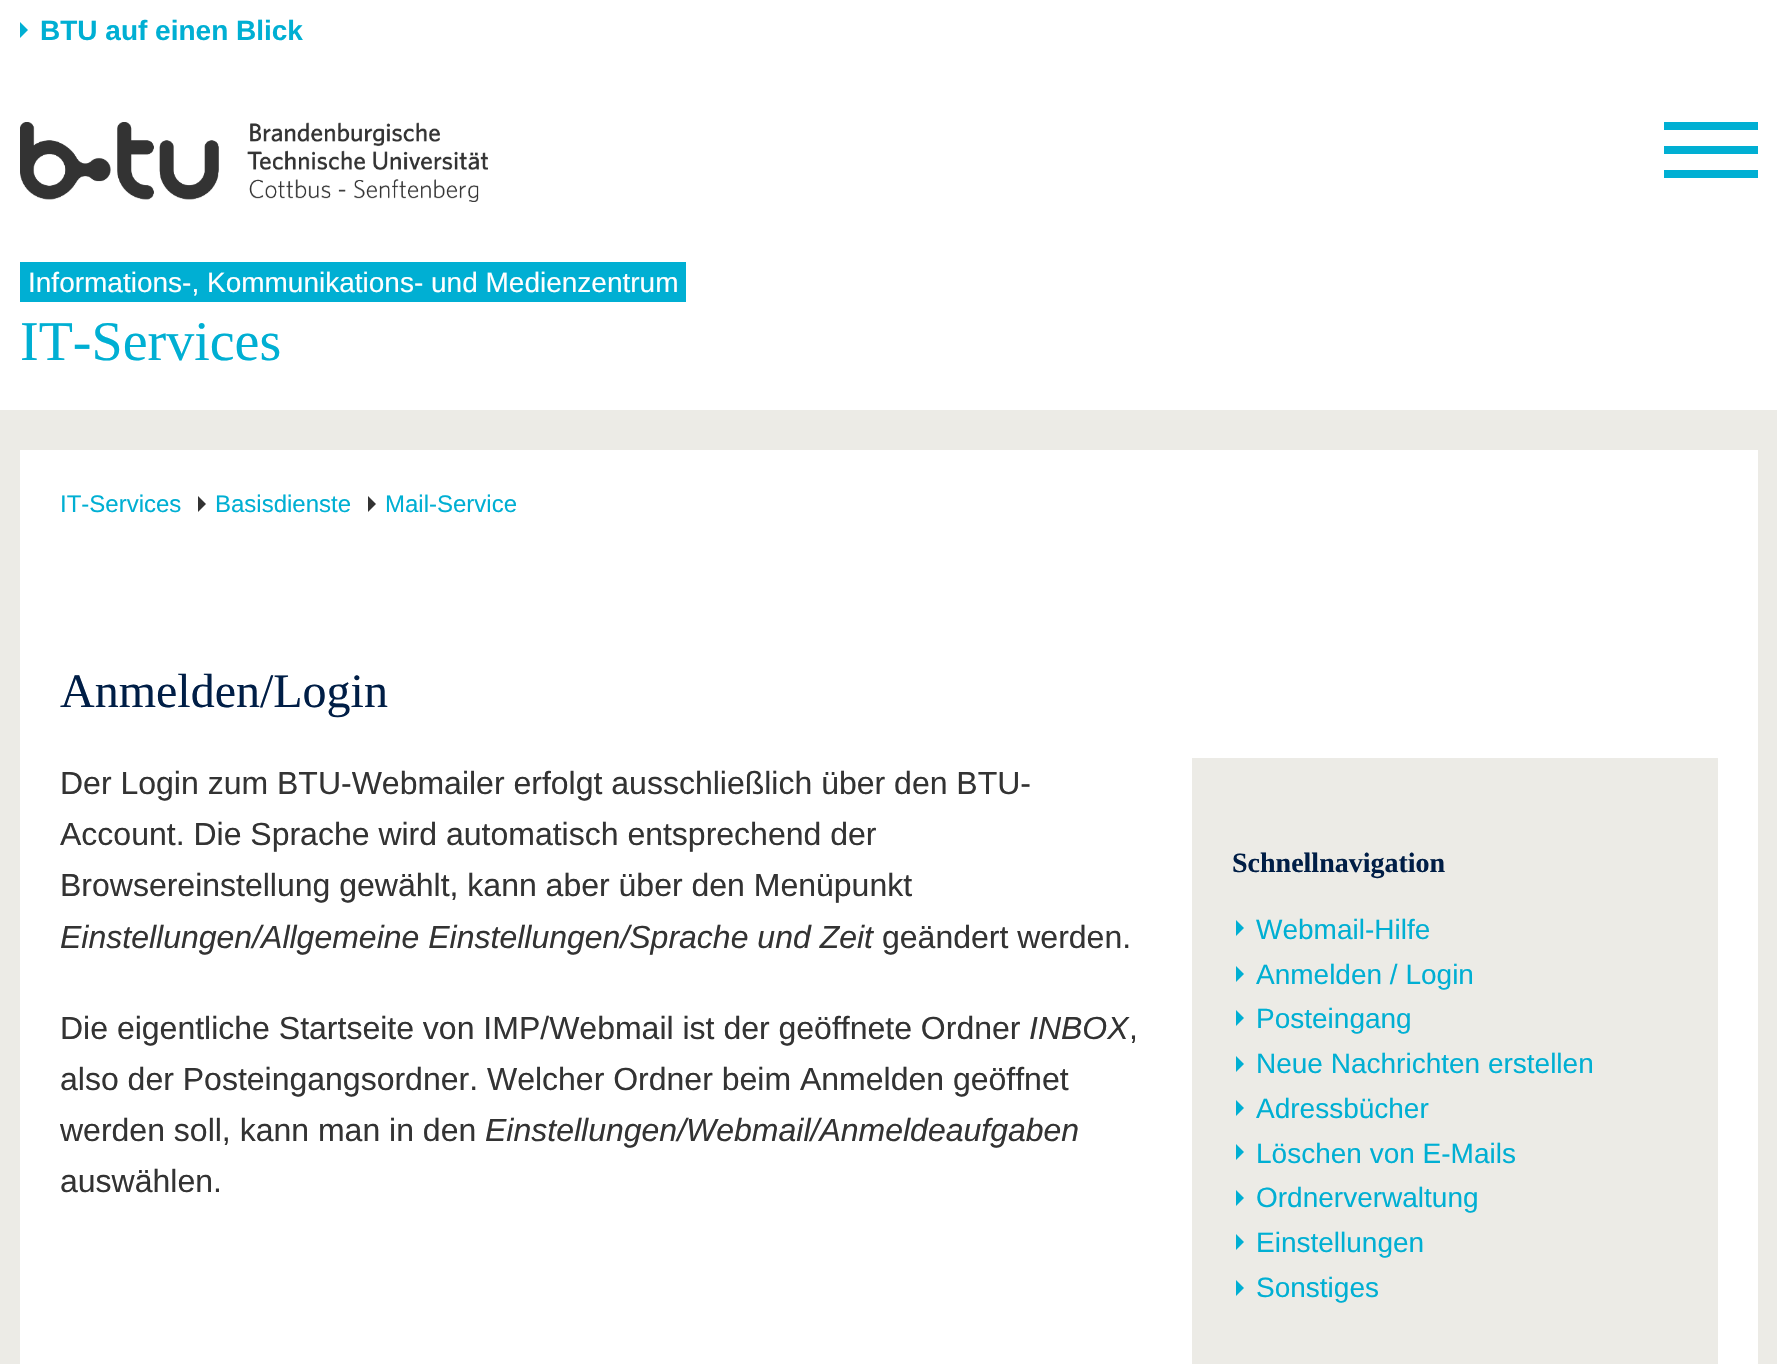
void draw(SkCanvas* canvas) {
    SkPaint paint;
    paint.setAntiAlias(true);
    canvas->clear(0xFFFFFFFF);
    paint.setColor(0xFF00AFD3);
    canvas->drawPath(SkPathBuilder().moveTo(20, 38).lineTo(20, 22).lineTo(28, 30).close().detach(), paint);
    SkFont font1(fontMgr->matchFamilyStyle("Liberation Sans", SkFontStyle::Bold()), 28);
    font1.setSubpixel(true);
    canvas->drawString("BTU auf einen Blick", 40, 40, font1, paint);
    canvas->drawImageRect(SkImages::DeferredFromEncodedData(SkData::MakeFromFileName("img1.png")), SkRect::MakeXYWH(20, 122, 468, 80), SkSamplingOptions());
    canvas->drawRect(SkRect::MakeXYWH(1664, 170, 94, 8), paint);
    canvas->drawRect(SkRect::MakeXYWH(1664, 146, 94, 8), paint);
    canvas->drawRect(SkRect::MakeXYWH(1664, 122, 94, 8), paint);
    canvas->drawRect(SkRect::MakeXYWH(20, 262, 666, 40), paint);
    SkFont font2(fontMgr->matchFamilyStyle("Liberation Sans", SkFontStyle::Normal()), 28);
    font2.setSubpixel(true);
    paint.setColor(0xFFFFFFFF);
    canvas->drawString("Informations-, Kommunikations- und Medienzentrum", 28, 292, font2, paint);
    SkFont font3(fontMgr->matchFamilyStyle("Liberation Serif", SkFontStyle::Normal()), 56);
    font3.setSubpixel(true);
    paint.setColor(0xFF00AFD3);
    canvas->drawString("IT-Services", 20, 360, font3, paint);
    paint.setColor(0xFFECEBE6);
    canvas->drawRect(SkRect::MakeXYWH(0, 410, 1777, 954), paint);
    paint.setColor(0xFFFFFFFF);
    canvas->drawRect(SkRect::MakeXYWH(20, 450, 1738, 914), paint);
    SkFont font4(fontMgr->matchFamilyStyle("Liberation Sans", SkFontStyle::Normal()), 24);
    font4.setSubpixel(true);
    paint.setColor(0xFF00AFD3);
    canvas->drawString("IT-Services", 60, 512, font4, paint);
    paint.setColor(0xFF333333);
    canvas->drawPath(SkPathBuilder().moveTo(198, 512).lineTo(198, 496).lineTo(206, 504).close().detach(), paint);
    paint.setColor(0xFF00AFD3);
    canvas->drawString("Basisdienste", 215, 512, font4, paint);
    paint.setColor(0xFF333333);
    canvas->drawPath(SkPathBuilder().moveTo(368, 512).lineTo(368, 496).lineTo(376, 504).close().detach(), paint);
    paint.setColor(0xFF00AFD3);
    canvas->drawString("Mail-Service", 385, 512, font4, paint);
    SkFont font5(fontMgr->matchFamilyStyle("Liberation Serif", SkFontStyle::Normal()), 48);
    font5.setSubpixel(true);
    paint.setColor(0xFF001E46);
    canvas->drawString("Anmelden/Login", 60, 707, font5, paint);
    SkFont font6(fontMgr->matchFamilyStyle("Liberation Sans", SkFontStyle::Normal()), 32);
    font6.setSubpixel(true);
    paint.setColor(0xFF333333);
    canvas->drawString("Der Login zum BTU-Webmailer erfolgt ausschließlich über den BTU-", 60, 794, font6, paint);
    canvas->drawString("Account. Die Sprache wird automatisch entsprechend der", 60, 845, font6, paint);
    canvas->drawString("Browsereinstellung gewählt, kann aber über den Menüpunkt", 60, 896, font6, paint);
    SkFont font7(fontMgr->matchFamilyStyle("Liberation Sans", SkFontStyle::Italic()), 32);
    font7.setSubpixel(true);
    canvas->drawString("Einstellungen/Allgemeine Einstellungen/Sprache und Zeit", 60, 948, font7, paint);
    canvas->drawString("geändert werden.", 882, 948, font6, paint);
    canvas->drawString("Die eigentliche Startseite von IMP/Webmail ist der geöffnete Ordner", 60, 1039, font6, paint);
    canvas->drawString("INBOX", 1029, 1039, font7, paint);
    canvas->drawString(",", 1129, 1039, font6, paint);
    canvas->drawString("also der Posteingangsordner. Welcher Ordner beim Anmelden geöffnet", 60, 1090, font6, paint);
    canvas->drawString("werden soll, kann man in den", 60, 1141, font6, paint);
    canvas->drawString("Einstellungen/Webmail/Anmeldeaufgaben", 485, 1141, font7, paint);
    canvas->drawString("auswählen.", 60, 1192, font6, paint);
    paint.setColor(0xFFECEBE6);
    canvas->drawRect(SkRect::MakeXYWH(1192, 758, 526, 606), paint);
    SkFont font8(fontMgr->matchFamilyStyle("Liberation Serif", SkFontStyle::Bold()), 28);
    font8.setSubpixel(true);
    paint.setColor(0xFF001E46);
    canvas->drawString("Schnellnavigation", 1232, 872, font8, paint);
    paint.setColor(0xFF00AFD3);
    canvas->drawPath(SkPathBuilder().moveTo(1236, 936).lineTo(1236, 920).lineTo(1244, 928).close().detach(), paint);
    canvas->drawString("Webmail-Hilfe", 1256, 939, font2, paint);
    canvas->drawPath(SkPathBuilder().moveTo(1236, 982).lineTo(1236, 966).lineTo(1244, 974).close().detach(), paint);
    canvas->drawString("Anmelden / Login", 1256, 984, font2, paint);
    canvas->drawPath(SkPathBuilder().moveTo(1236, 1026).lineTo(1236, 1010).lineTo(1244, 1018).close().detach(), paint);
    canvas->drawString("Posteingang", 1256, 1028, font2, paint);
    canvas->drawPath(SkPathBuilder().moveTo(1236, 1072).lineTo(1236, 1056).lineTo(1244, 1064).close().detach(), paint);
    canvas->drawString("Neue Nachrichten erstellen", 1256, 1073, font2, paint);
    canvas->drawPath(SkPathBuilder().moveTo(1236, 1116).lineTo(1236, 1100).lineTo(1244, 1108).close().detach(), paint);
    canvas->drawString("Adressbücher", 1256, 1118, font2, paint);
    canvas->drawPath(SkPathBuilder().moveTo(1236, 1160).lineTo(1236, 1144).lineTo(1244, 1152).close().detach(), paint);
    canvas->drawString("Löschen von E-Mails", 1256, 1163, font2, paint);
    canvas->drawPath(SkPathBuilder().moveTo(1236, 1206).lineTo(1236, 1190).lineTo(1244, 1198).close().detach(), paint);
    canvas->drawString("Ordnerverwaltung", 1256, 1207, font2, paint);
    canvas->drawPath(SkPathBuilder().moveTo(1236, 1250).lineTo(1236, 1234).lineTo(1244, 1242).close().detach(), paint);
    canvas->drawString("Einstellungen", 1256, 1252, font2, paint);
    canvas->drawPath(SkPathBuilder().moveTo(1236, 1296).lineTo(1236, 1280).lineTo(1244, 1288).close().detach(), paint);
    canvas->drawString("Sonstiges", 1256, 1297, font2, paint);
}
